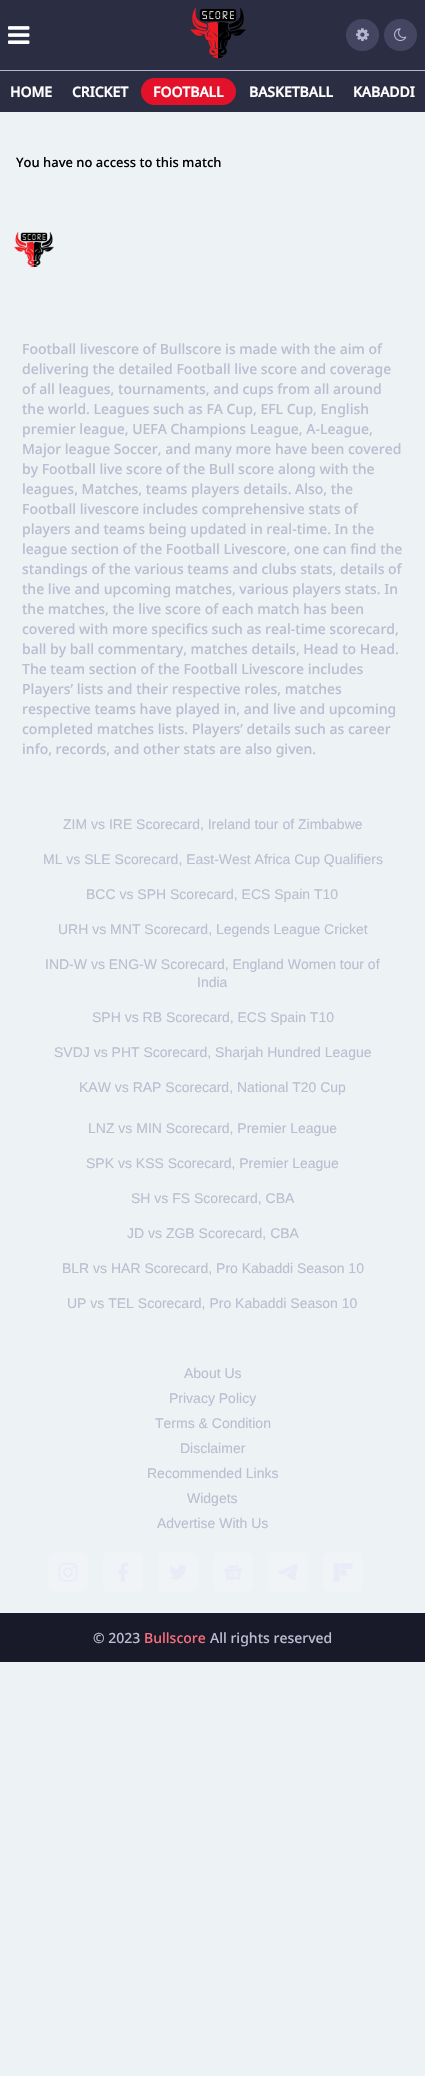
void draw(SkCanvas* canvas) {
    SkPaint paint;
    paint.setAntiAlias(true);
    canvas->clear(0xFFEDF2F4);
    paint.setColor(0xFF2B2D42);
    canvas->drawRect(SkRect::MakeXYWH(0, 0, 425, 112), paint);
    canvas->drawImageRect(SkImages::DeferredFromEncodedData(SkData::MakeFromFileName("img1.png")), SkRect::MakeXYWH(8, 26, 22, 18), SkSamplingOptions());
    canvas->drawImageRect(SkImages::DeferredFromEncodedData(SkData::MakeFromFileName("img2.png")), SkRect::MakeXYWH(190, 8, 56, 50), SkSamplingOptions());
    paint.setColor(0xFF434661);
    canvas->drawRoundRect(SkRect::MakeXYWH(346, 19, 33, 32), 16, 16, paint);
    canvas->drawImageRect(SkImages::DeferredFromEncodedData(SkData::MakeFromFileName("img3.png")), SkRect::MakeXYWH(356, 28, 13, 14), SkSamplingOptions());
    canvas->drawRoundRect(SkRect::MakeXYWH(384, 19, 33, 32), 16, 16, paint);
    canvas->drawImageRect(SkImages::DeferredFromEncodedData(SkData::MakeFromFileName("img4.png")), SkRect::MakeXYWH(394, 28, 13, 14), SkSamplingOptions());
    paint.setColor(0xFFB4B6CF);
    canvas->drawRect(SkRect::MakeXYWH(0, 70, 425, 1), paint);
    SkFont font1(fontMgr->matchFamilyStyle("Noto Sans", SkFontStyle::Bold()), 14);
    font1.setSubpixel(true);
    paint.setColor(0xFFFFFFFF);
    canvas->drawString("HOME", 10, 97, font1, paint);
    canvas->drawString("CRICKET", 72, 97, font1, paint);
    paint.setColor(0xFFE4112A);
    canvas->drawRoundRect(SkRect::MakeXYWH(141, 78, 95, 27), 13.5f, 13.5f, paint);
    paint.setColor(0xFFFFFFFF);
    canvas->drawString("FOOTBALL", 153, 97, font1, paint);
    canvas->drawString("BASKETBALL", 249, 97, font1, paint);
    canvas->drawString("KABADDI", 353, 97, font1, paint);
    SkFont font2(fontMgr->matchFamilyStyle("Noto Sans", SkFontStyle(500, SkFontStyle::kNormal_Width, SkFontStyle::kUpright_Slant)), 13);
    font2.setSubpixel(true);
    paint.setColor(0xFF000000);
    canvas->drawString("You have no access to this match", 16, 167, font2, paint);
    canvas->drawImageRect(SkImages::DeferredFromEncodedData(SkData::MakeFromFileName("img5.png")), SkRect::MakeXYWH(14, 232, 40, 35), SkSamplingOptions());
    SkFont font3(fontMgr->matchFamilyStyle("Noto Sans", SkFontStyle(500, SkFontStyle::kNormal_Width, SkFontStyle::kUpright_Slant)), 14);
    font3.setSubpixel(true);
    paint.setColor(0xFFBBBDD0);
    canvas->drawString("Football livescore of Bullscore is made with the aim of", 22, 354, font3, paint);
    canvas->drawString("delivering the detailed Football live score and coverage", 22, 374, font3, paint);
    canvas->drawString("of all leagues, tournaments, and cups from all around", 22, 394, font3, paint);
    canvas->drawString("the world. Leagues such as FA Cup, EFL Cup, English", 22, 414, font3, paint);
    canvas->drawString("premier league, UEFA Champions League, A-League,", 22, 434, font3, paint);
    canvas->drawString("Major league Soccer, and many more have been covered", 22, 454, font3, paint);
    canvas->drawString("by Football live score of the Bull score along with the", 22, 474, font3, paint);
    canvas->drawString("leagues, Matches, teams players details. Also, the", 22, 494, font3, paint);
    canvas->drawString("Football livescore includes comprehensive stats of", 22, 514, font3, paint);
    canvas->drawString("players and teams being updated in real-time. In the", 22, 534, font3, paint);
    canvas->drawString("league section of the Football Livescore, one can find the", 22, 554, font3, paint);
    canvas->drawString("standings of the various teams and clubs stats, details of", 22, 574, font3, paint);
    canvas->drawString("the live and upcoming matches, various players stats. In", 22, 594, font3, paint);
    canvas->drawString("the matches, the live score of each match has been", 22, 614, font3, paint);
    canvas->drawString("covered with more specifics such as real-time scorecard,", 22, 634, font3, paint);
    canvas->drawString("ball by ball commentary, matches details, Head to Head.", 22, 654, font3, paint);
    canvas->drawString("The team section of the Football Livescore includes", 22, 674, font3, paint);
    canvas->drawString("Players’ lists and their respective roles, matches", 22, 694, font3, paint);
    canvas->drawString("respective teams have played in, and live and upcoming", 22, 714, font3, paint);
    canvas->drawString("completed matches lists. Players’ details such as career", 22, 734, font3, paint);
    canvas->drawString("info, records, and other stats are also given.", 22, 754, font3, paint);
    SkFont font4(fontMgr->matchFamilyStyle("Liberation Sans", SkFontStyle::Normal()), 14);
    font4.setSubpixel(true);
    canvas->drawString("ZIM vs IRE Scorecard, Ireland tour of Zimbabwe", 63, 829, font4, paint);
    canvas->drawString("ML vs SLE Scorecard, East-West Africa Cup Qualifiers", 43, 864, font4, paint);
    canvas->drawString("BCC vs SPH Scorecard, ECS Spain T10", 86, 899, font4, paint);
    canvas->drawString("URH vs MNT Scorecard, Legends League Cricket", 58, 934, font4, paint);
    canvas->drawString("IND-W vs ENG-W Scorecard, England Women tour of", 45, 969, font4, paint);
    canvas->drawString("India", 197, 987, font4, paint);
    canvas->drawString("SPH vs RB Scorecard, ECS Spain T10", 92, 1022, font4, paint);
    canvas->drawString("SVDJ vs PHT Scorecard, Sharjah Hundred League", 54, 1057, font4, paint);
    canvas->drawString("KAW vs RAP Scorecard, National T20 Cup", 79, 1092, font4, paint);
    canvas->drawString("LNZ vs MIN Scorecard, Premier League", 88, 1133, font4, paint);
    canvas->drawString("SPK vs KSS Scorecard, Premier League", 86, 1168, font4, paint);
    canvas->drawString("SH vs FS Scorecard, CBA", 131, 1203, font4, paint);
    canvas->drawString("JD vs ZGB Scorecard, CBA", 127, 1238, font4, paint);
    canvas->drawString("BLR vs HAR Scorecard, Pro Kabaddi Season 10", 62, 1273, font4, paint);
    canvas->drawString("UP vs TEL Scorecard, Pro Kabaddi Season 10", 67, 1308, font4, paint);
    canvas->drawString("About Us", 184, 1378, font4, paint);
    canvas->drawString("Privacy Policy", 169, 1403, font4, paint);
    canvas->drawString("Terms & Condition", 155, 1428, font4, paint);
    canvas->drawString("Disclaimer", 180, 1453, font4, paint);
    canvas->drawString("Recommended Links", 147, 1478, font4, paint);
    canvas->drawString("Widgets", 187, 1503, font4, paint);
    canvas->drawString("Advertise With Us", 157, 1528, font4, paint);
    paint.setColor(0xFFF0F4F6);
    canvas->drawRoundRect(SkRect::MakeXYWH(48, 1552, 40, 40), 6, 6, paint);
    canvas->drawImageRect(SkImages::DeferredFromEncodedData(SkData::MakeFromFileName("img6.png")), SkRect::MakeXYWH(58, 1563, 20, 19), SkSamplingOptions());
    canvas->drawRoundRect(SkRect::MakeXYWH(103, 1552, 40, 40), 6, 6, paint);
    canvas->drawImageRect(SkImages::DeferredFromEncodedData(SkData::MakeFromFileName("img7.png")), SkRect::MakeXYWH(118, 1563, 10, 19), SkSamplingOptions());
    canvas->drawRoundRect(SkRect::MakeXYWH(158, 1552, 40, 40), 6, 6, paint);
    canvas->drawImageRect(SkImages::DeferredFromEncodedData(SkData::MakeFromFileName("img8.png")), SkRect::MakeXYWH(170, 1565, 16, 15), SkSamplingOptions());
    canvas->drawRoundRect(SkRect::MakeXYWH(213, 1552, 40, 40), 6, 6, paint);
    canvas->drawImageRect(SkImages::DeferredFromEncodedData(SkData::MakeFromFileName("img9.png")), SkRect::MakeXYWH(224, 1565, 18, 15), SkSamplingOptions());
    canvas->drawRoundRect(SkRect::MakeXYWH(268, 1552, 40, 40), 6, 6, paint);
    canvas->drawImageRect(SkImages::DeferredFromEncodedData(SkData::MakeFromFileName("img10.png")), SkRect::MakeXYWH(278, 1564, 20, 16), SkSamplingOptions());
    canvas->drawRoundRect(SkRect::MakeXYWH(323, 1552, 40, 40), 6, 6, paint);
    canvas->drawImageRect(SkImages::DeferredFromEncodedData(SkData::MakeFromFileName("img11.png")), SkRect::MakeXYWH(333, 1563, 20, 19), SkSamplingOptions());
    paint.setColor(0xFF191A29);
    canvas->drawRect(SkRect::MakeXYWH(0, 1613, 425, 49), paint);
    paint.setColor(0xFFBBBDD0);
    canvas->drawString("© 2023", 93, 1643, font3, paint);
    paint.setColor(0xFFF96E7F);
    canvas->drawString("Bullscore", 144, 1643, font3, paint);
    paint.setColor(0xFFBBBDD0);
    canvas->drawString("All rights reserved", 210, 1643, font3, paint);
}
